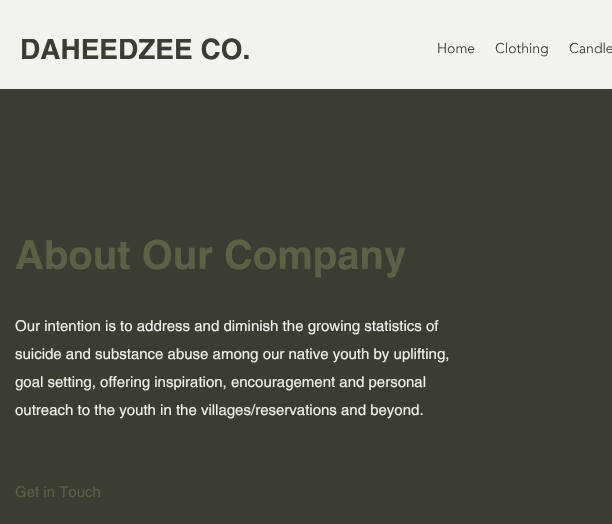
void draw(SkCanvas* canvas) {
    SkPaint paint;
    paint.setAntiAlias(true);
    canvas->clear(0xFF393D32);
    paint.setColor(0xFFF1F3EE);
    canvas->drawRect(SkRect::MakeXYWH(0, 0, 612, 89), paint);
    SkFont font1(fontMgr->matchFamilyStyle("helvetica", SkFontStyle::Bold()), 28);
    font1.setSubpixel(true);
    paint.setColor(0xFF393D32);
    canvas->drawString("DAHEEDZEE CO.", 20, 59, font1, paint);
    SkFont font2(fontMgr->matchFamilyStyle("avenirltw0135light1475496", SkFontStyle(300, SkFontStyle::kNormal_Width, SkFontStyle::kUpright_Slant)), 14);
    font2.setSubpixel(true);
    canvas->drawString("Home", 437, 53, font2, paint);
    canvas->drawString("Clothing", 495, 53, font2, paint);
    canvas->drawString("Candle", 569, 53, font2, paint);
    SkFont font3(fontMgr->matchFamilyStyle("helvetica", SkFontStyle::Bold()), 40);
    font3.setSubpixel(true);
    paint.setColor(0xFF5C6146);
    canvas->drawString("About Our Company", 15, 269, font3, paint);
    SkFont font4(fontMgr->matchFamilyStyle("helvetica", SkFontStyle::Normal()), 15);
    font4.setSubpixel(true);
    paint.setColor(0xFFF1F3EE);
    canvas->drawString("Our intention is to address and diminish the growing statistics of", 15, 331, font4, paint);
    canvas->drawString("suicide and substance abuse among our native youth by uplifting,", 15, 359, font4, paint);
    canvas->drawString("goal setting, offering inspiration, encouragement and personal", 15, 387, font4, paint);
    canvas->drawString("outreach to the youth in the villages/reservations and beyond.", 15, 415, font4, paint);
    paint.setColor(0xFF5C6146);
    canvas->drawString("Get in Touch", 15, 497, font4, paint);
}
